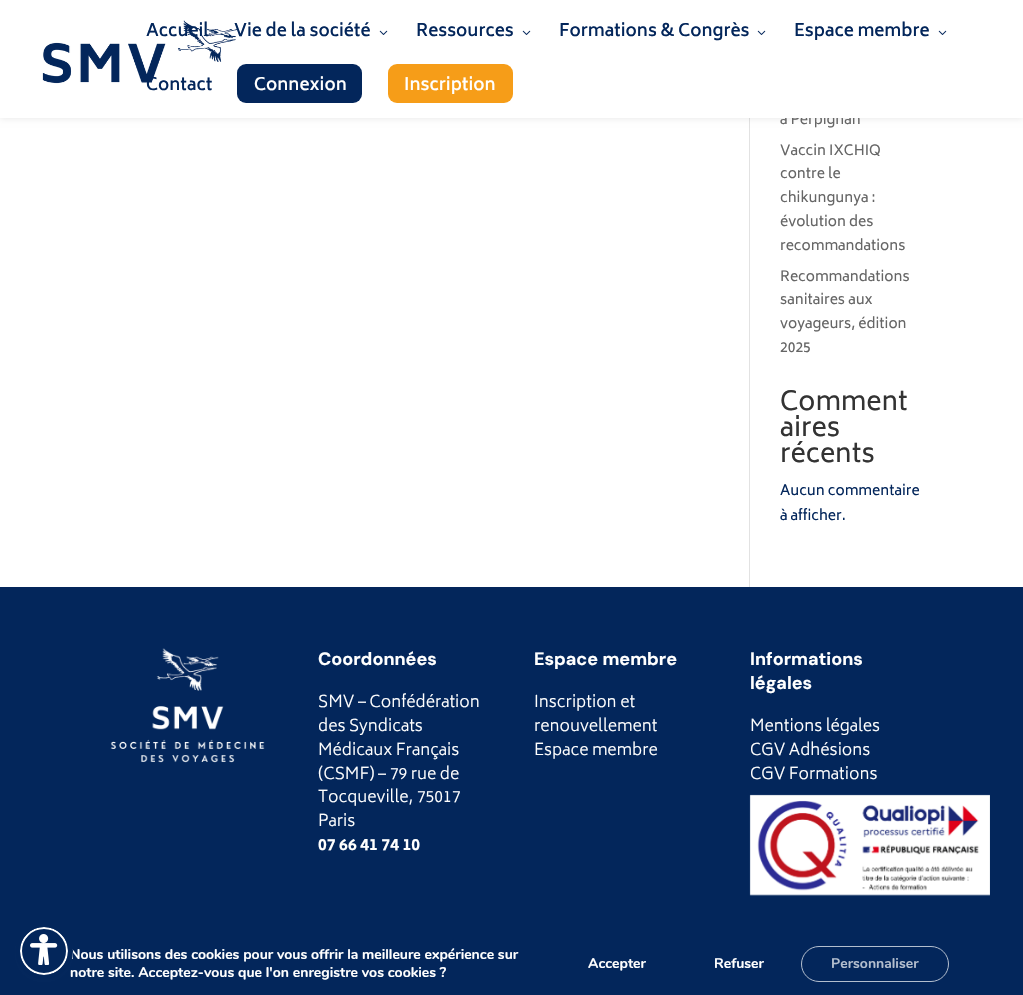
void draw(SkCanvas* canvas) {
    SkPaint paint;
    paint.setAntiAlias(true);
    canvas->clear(0xFFFFFFFF);
    paint.setColor(0xFFE2E2E2);
    canvas->drawRect(SkRect::MakeXYWH(749, 118, 1, 469), paint);
    paint.setColor(0x1A000000);
    paint.setMaskFilter(SkMaskFilter::MakeBlur(kNormal_SkBlurStyle, 3.5f));
    canvas->drawRect(SkRect::MakeXYWH(0, 0, 1023, 118), paint);
    paint.setMaskFilter(nullptr);
    SkFont font1(fontMgr->matchFamilyStyle("Biryani", SkFontStyle::Normal()), 14);
    font1.setSubpixel(true);
    paint.setColor(0xFF666666);
    canvas->drawString("à Perpignan", 780, 124, font1, paint);
    paint.setColor(0xFFFFFFFF);
    canvas->drawRect(SkRect::MakeXYWH(0, 0, 1023, 118), paint);
    canvas->drawImageRect(SkImages::DeferredFromEncodedData(SkData::MakeFromFileName("img1.png")), SkRect::MakeXYWH(42, 20, 196, 64), SkSamplingOptions());
    SkFont font2(fontMgr->matchFamilyStyle("Biryani", SkFontStyle(600, SkFontStyle::kNormal_Width, SkFontStyle::kUpright_Slant)), 17);
    font2.setSubpixel(true);
    paint.setColor(0xFF03265B);
    canvas->drawString("Accueil", 146, 36, font2, paint);
    canvas->drawString("Vie de la société", 234, 36, font2, paint);
    canvas->drawImageRect(SkImages::DeferredFromEncodedData(SkData::MakeFromFileName("img2.png")), SkRect::MakeXYWH(379, 30, 9, 5), SkSamplingOptions());
    canvas->drawString("Ressources", 416, 36, font2, paint);
    canvas->drawImageRect(SkImages::DeferredFromEncodedData(SkData::MakeFromFileName("img2.png")), SkRect::MakeXYWH(522, 30, 9, 5), SkSamplingOptions());
    canvas->drawString("Formations & Congrès", 559, 36, font2, paint);
    canvas->drawImageRect(SkImages::DeferredFromEncodedData(SkData::MakeFromFileName("img2.png")), SkRect::MakeXYWH(757, 30, 9, 5), SkSamplingOptions());
    canvas->drawString("Espace membre", 794, 36, font2, paint);
    canvas->drawImageRect(SkImages::DeferredFromEncodedData(SkData::MakeFromFileName("img2.png")), SkRect::MakeXYWH(938, 30, 9, 5), SkSamplingOptions());
    canvas->drawString("Contact", 146, 90, font2, paint);
    canvas->drawRoundRect(SkRect::MakeXYWH(237, 64, 125, 39), 9, 9, paint);
    paint.setColor(0xFFFFFFFF);
    canvas->drawString("Connexion", 254, 90, font2, paint);
    paint.setColor(0xFFF69D18);
    canvas->drawRoundRect(SkRect::MakeXYWH(388, 64, 125, 39), 9, 9, paint);
    paint.setColor(0xFFFFFFFF);
    canvas->drawString("Inscription", 404, 90, font2, paint);
    paint.setColor(0xFF666666);
    canvas->drawString("Vaccin IXCHIQ", 780, 155, font1, paint);
    canvas->drawString("contre le", 780, 178, font1, paint);
    canvas->drawString("chikungunya :", 780, 202, font1, paint);
    canvas->drawString("évolution des", 780, 226, font1, paint);
    canvas->drawString("recommandations", 780, 250, font1, paint);
    canvas->drawString("Recommandations", 780, 281, font1, paint);
    canvas->drawString("sanitaires aux", 780, 304, font1, paint);
    canvas->drawString("voyageurs, édition", 780, 328, font1, paint);
    canvas->drawString("2025", 780, 352, font1, paint);
    SkFont font3(fontMgr->matchFamilyStyle("Biryani", SkFontStyle::Normal()), 26);
    font3.setSubpixel(true);
    paint.setColor(0xFF333333);
    canvas->drawString("Comment", 780, 410, font3, paint);
    canvas->drawString("aires", 780, 436, font3, paint);
    canvas->drawString("récents", 780, 462, font3, paint);
    paint.setColor(0xFF03265B);
    canvas->drawString("Aucun commentaire", 780, 495, font1, paint);
    canvas->drawString("à afficher.", 780, 520, font1, paint);
    canvas->drawRect(SkRect::MakeXYWH(0, 587, 1023, 408), paint);
    canvas->drawImageRect(SkImages::DeferredFromEncodedData(SkData::MakeFromFileName("img3.png")), SkRect::MakeXYWH(110, 648, 155, 115), SkSamplingOptions());
    SkFont font4(fontMgr->matchFamilyStyle("DM Sans", SkFontStyle::Bold()), 18);
    font4.setSubpixel(true);
    paint.setColor(0xFFFFFFFF);
    canvas->drawString("Coordonnées", 318, 665, font4, paint);
    SkFont font5(fontMgr->matchFamilyStyle("Biryani", SkFontStyle(300, SkFontStyle::kNormal_Width, SkFontStyle::kUpright_Slant)), 16);
    font5.setSubpixel(true);
    canvas->drawString("SMV – Confédération", 318, 707, font5, paint);
    canvas->drawString("des Syndicats", 318, 731, font5, paint);
    canvas->drawString("Médicaux Français", 318, 755, font5, paint);
    canvas->drawString("(CSMF) – 79 rue de", 318, 779, font5, paint);
    canvas->drawString("Tocqueville, 75017", 318, 802, font5, paint);
    canvas->drawString("Paris", 318, 826, font5, paint);
    SkFont font6(fontMgr->matchFamilyStyle("Biryani", SkFontStyle::Bold()), 16);
    font6.setSubpixel(true);
    canvas->drawString("07 66 41 74 10", 318, 850, font6, paint);
    canvas->drawString("Espace membre", 534, 665, font4, paint);
    canvas->drawString("Inscription et", 534, 707, font5, paint);
    canvas->drawString("renouvellement", 534, 731, font5, paint);
    canvas->drawString("Espace membre", 534, 755, font5, paint);
    canvas->drawString("Informations", 750, 665, font4, paint);
    canvas->drawString("légales", 750, 689, font4, paint);
    canvas->drawString("Mentions légales", 750, 731, font5, paint);
    canvas->drawString("CGV Adhésions", 750, 755, font5, paint);
    canvas->drawString("CGV Formations", 750, 779, font5, paint);
    canvas->drawImageRect(SkImages::DeferredFromEncodedData(SkData::MakeFromFileName("img4.png")), SkRect::MakeXYWH(749, 794, 241, 102), SkSamplingOptions());
    paint.setColor(0x335D6494);
    paint.setMaskFilter(SkMaskFilter::MakeBlur(kNormal_SkBlurStyle, 2));
    canvas->drawRoundRect(SkRect::MakeXYWH(20, 929, 48, 48), 24, 24, paint);
    paint.setMaskFilter(nullptr);
    paint.setColor(0xFF03265B);
    canvas->drawCircle(44, 951, 23, paint);
    paint.setStyle(SkPaint::kStroke_Style);
    paint.setStrokeWidth(2);
    paint.setColor(0xFFFFFFFF);
    canvas->drawCircle(44, 951, 23, paint);
    SkFont font7(fontMgr->matchFamilyStyle("Nunito", SkFontStyle::Bold()), 14);
    font7.setSubpixel(true);
    paint.setStyle(SkPaint::kFill_Style);
    canvas->drawString("Nous utilisons des cookies pour vous offrir la meilleure expérience sur", 70, 959, font7, paint);
    canvas->drawString("notre site. Acceptez-vous que l'on enregistre vos cookies ?", 70, 977, font7, paint);
    paint.setStyle(SkPaint::kStroke_Style);
    paint.setStrokeWidth(5);
    paint.setColor(0xFF03265B);
    canvas->drawCircle(44, 951, 26.5f, paint);
    canvas->drawImageRect(SkImages::DeferredFromEncodedData(SkData::MakeFromFileName("img5.png")), SkRect::MakeXYWH(30, 934, 28, 31), SkSamplingOptions());
    paint.setStyle(SkPaint::kFill_Style);
    paint.setColor(0xFFFFFFFF);
    canvas->drawString("Accepter", 588, 968, font7, paint);
    canvas->drawString("Refuser", 714, 968, font7, paint);
    paint.setStyle(SkPaint::kStroke_Style);
    paint.setStrokeWidth(1);
    paint.setColor(0xFFB3BECE);
    canvas->drawRoundRect(SkRect::MakeXYWH(801.5f, 946.5f, 147, 35), 17.5f, 17.5f, paint);
    paint.setStyle(SkPaint::kFill_Style);
    canvas->drawString("Personnaliser", 831, 968, font7, paint);
}
